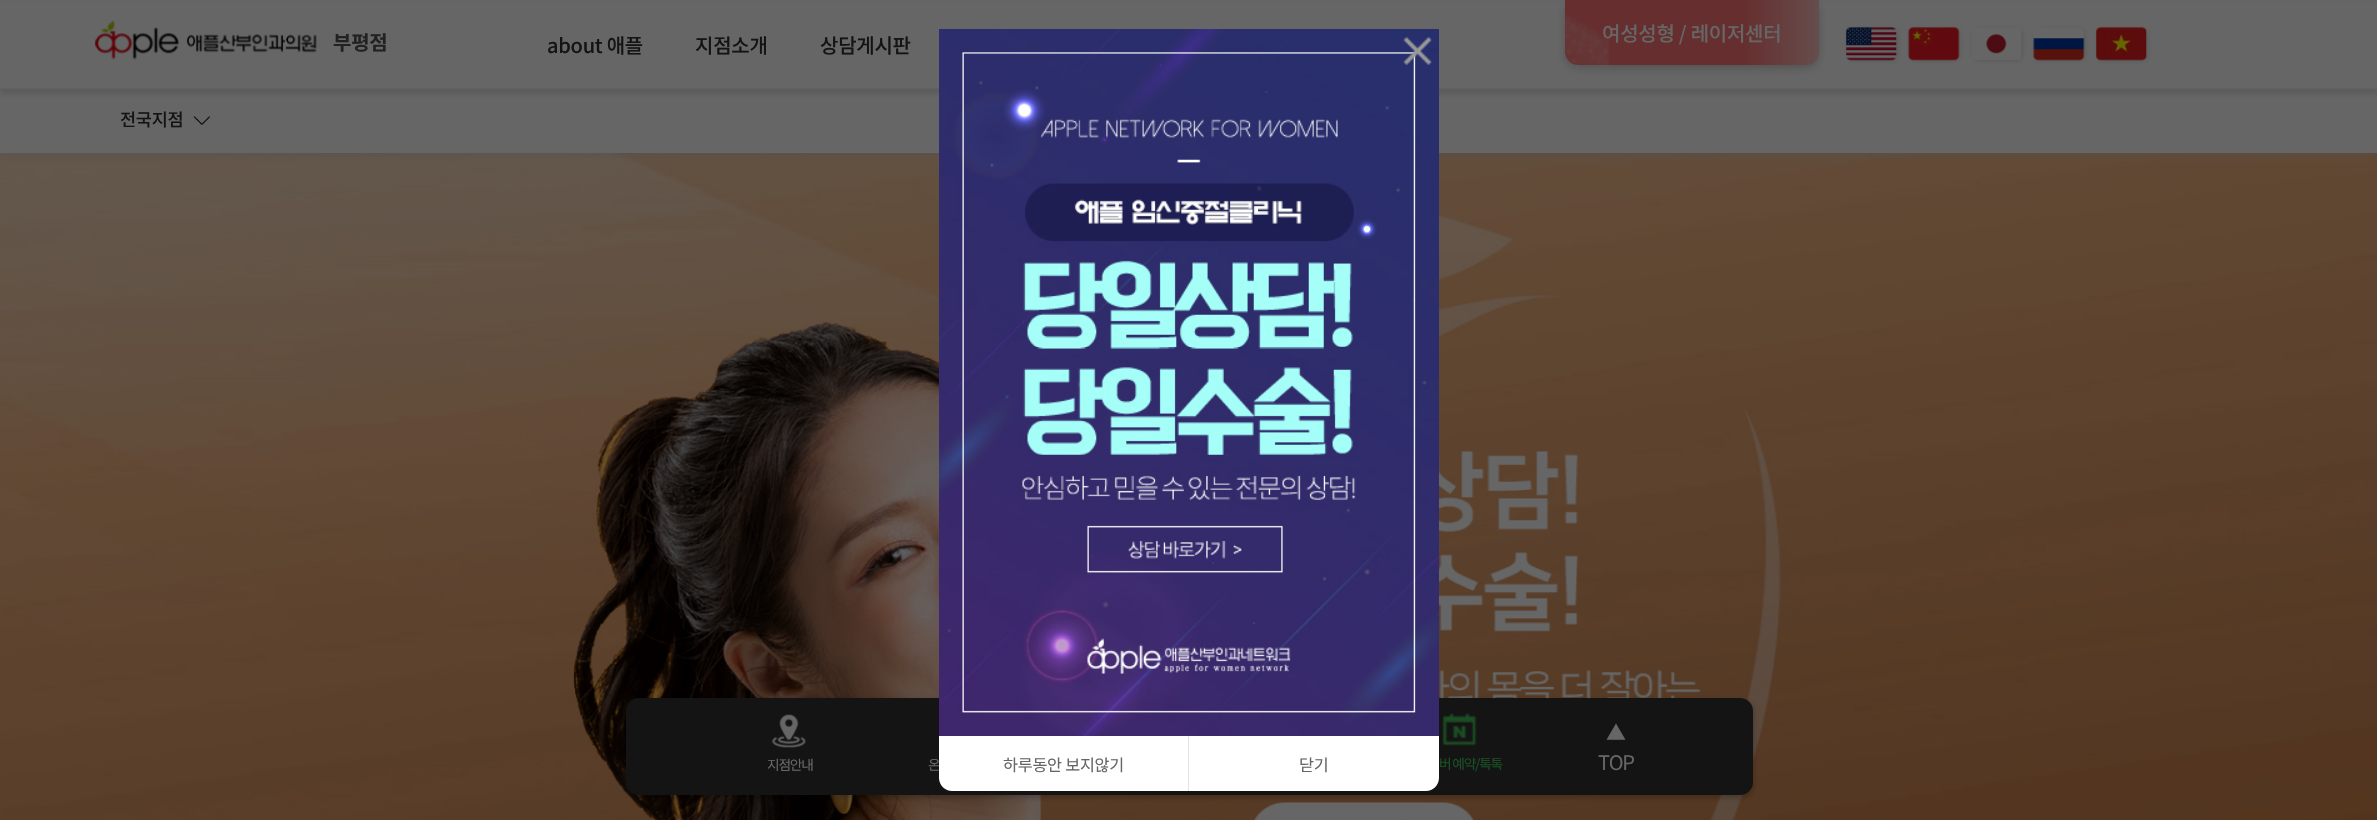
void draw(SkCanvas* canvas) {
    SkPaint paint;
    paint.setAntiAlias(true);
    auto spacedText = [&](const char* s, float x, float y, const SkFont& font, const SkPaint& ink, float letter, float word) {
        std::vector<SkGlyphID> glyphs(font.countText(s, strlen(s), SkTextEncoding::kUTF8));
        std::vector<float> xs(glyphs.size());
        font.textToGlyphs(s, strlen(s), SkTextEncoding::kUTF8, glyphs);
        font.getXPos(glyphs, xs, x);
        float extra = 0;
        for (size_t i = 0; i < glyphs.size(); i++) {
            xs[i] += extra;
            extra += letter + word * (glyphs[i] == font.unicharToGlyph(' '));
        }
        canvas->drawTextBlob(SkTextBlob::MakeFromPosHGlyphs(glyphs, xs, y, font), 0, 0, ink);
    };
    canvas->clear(0xFF666666);
    paint.setColor(0x1A000000);
    paint.setMaskFilter(SkMaskFilter::MakeBlur(kNormal_SkBlurStyle, 2.5f));
    canvas->drawRect(SkRect::MakeXYWH(0, 5, 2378, 89), paint);
    paint.setMaskFilter(nullptr);
    canvas->drawImageRect(SkImages::DeferredFromEncodedData(SkData::MakeFromFileName("img9.png")), SkRect::MakeXYWH(0, 153, 2377, 667), SkSamplingOptions());
    canvas->save();
    canvas->clipPath(SkPathBuilder(SkPathFillType::kEvenOdd).moveTo(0, 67).lineTo(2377, 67).lineTo(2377, 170).lineTo(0, 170).close().moveTo(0, 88).lineTo(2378, 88).lineTo(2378, 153).lineTo(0, 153).close().detach(), true);
    paint.setColor(0xFF525252);
    paint.setMaskFilter(SkMaskFilter::MakeBlur(kNormal_SkBlurStyle, 6));
    canvas->drawRect(SkRect::MakeXYWH(0, 86, 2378, 65), paint);
    paint.setMaskFilter(nullptr);
    canvas->restore();
    paint.setColor(0xFF666666);
    canvas->drawRect(SkRect::MakeXYWH(0, 3, 2377, 85), paint);
    paint.setColor(0xFF626262);
    canvas->drawRect(SkRect::MakeXYWH(0, 88, 2377, 1), paint);
    canvas->drawImageRect(SkImages::DeferredFromEncodedData(SkData::MakeFromFileName("img1.png")), SkRect::MakeXYWH(95, 20, 222, 40), SkSamplingOptions());
    SkFont font1(fontMgr->matchFamilyStyle("Noto Sans KR", SkFontStyle::Bold()), 20);
    font1.setSubpixel(true);
    paint.setColor(0xFF222222);
    spacedText("부평점", 333, 50, font1, paint, -0.25f, 0);
    SkFont font2(fontMgr->matchFamilyStyle("Noto Sans KR", SkFontStyle(500, SkFontStyle::kNormal_Width, SkFontStyle::kUpright_Slant)), 20);
    font2.setSubpixel(true);
    paint.setColor(0xFF141414);
    spacedText("about 애플", 547, 53, font2, paint, -0.25f, 0);
    spacedText("지점소개", 695, 53, font2, paint, -0.25f, 0);
    spacedText("상담게시판", 820, 53, font2, paint, -0.25f, 0);
    paint.setColor(0xFF525252);
    paint.setMaskFilter(SkMaskFilter::MakeBlur(kNormal_SkBlurStyle, 4));
    canvas->drawRoundRect(SkRect::MakeXYWH(1565, 0, 254, 68), 13, 13, paint);
    paint.setMaskFilter(nullptr);
    {
        const SkColor colors[] = {0xFF662E2E, 0xFF664D4D};
        const float stops[] = {0.7f, 1};
        const SkPoint ends[] = {{1565, 31}, {1819, 31}};
        paint.setShader(SkGradientShader::MakeLinear(ends, colors, stops, 2, SkTileMode::kClamp));
        paint.setAlpha(255);
    }
    canvas->drawPath(SkPathBuilder().moveTo(1565, -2).lineTo(1819, -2).lineTo(1819, 52).cubicTo(1819, 59, 1813, 65, 1806, 65).lineTo(1578, 65).cubicTo(1571, 65, 1565, 59, 1565, 52).close().detach(), paint);
    paint.setShader(nullptr);
    paint.setColor(0xFF666666);
    spacedText("여성성형 / 레이저센터", 1602, 41, font2, paint, -0.25f, 0);
    canvas->drawImageRect(SkImages::DeferredFromEncodedData(SkData::MakeFromFileName("img2.png")), SkRect::MakeXYWH(1565, 14, 44, 55), SkSamplingOptions());
    paint.setColor(0xFF5A5A5A);
    paint.setMaskFilter(SkMaskFilter::MakeBlur(kNormal_SkBlurStyle, 2.5f));
    canvas->drawRoundRect(SkRect::MakeXYWH(1848, 29, 50, 32), 6, 6, paint);
    paint.setMaskFilter(nullptr);
    canvas->drawImageRect(SkImages::DeferredFromEncodedData(SkData::MakeFromFileName("img3.png")), SkRect::MakeXYWH(1846, 27, 51, 34), SkSamplingOptions());
    paint.setMaskFilter(SkMaskFilter::MakeBlur(kNormal_SkBlurStyle, 2.5f));
    canvas->drawRoundRect(SkRect::MakeXYWH(1910, 29, 50, 32), 6, 6, paint);
    paint.setMaskFilter(nullptr);
    canvas->drawImageRect(SkImages::DeferredFromEncodedData(SkData::MakeFromFileName("img4.png")), SkRect::MakeXYWH(1908, 27, 52, 34), SkSamplingOptions());
    paint.setMaskFilter(SkMaskFilter::MakeBlur(kNormal_SkBlurStyle, 2.5f));
    canvas->drawRoundRect(SkRect::MakeXYWH(1973, 29, 50, 32), 6, 6, paint);
    paint.setMaskFilter(nullptr);
    canvas->drawImageRect(SkImages::DeferredFromEncodedData(SkData::MakeFromFileName("img5.png")), SkRect::MakeXYWH(1972, 28, 50, 32), SkSamplingOptions());
    paint.setMaskFilter(SkMaskFilter::MakeBlur(kNormal_SkBlurStyle, 2.5f));
    canvas->drawRoundRect(SkRect::MakeXYWH(2035, 29, 50, 32), 6, 6, paint);
    paint.setMaskFilter(nullptr);
    canvas->drawImageRect(SkImages::DeferredFromEncodedData(SkData::MakeFromFileName("img6.png")), SkRect::MakeXYWH(2033, 28, 52, 33), SkSamplingOptions());
    paint.setMaskFilter(SkMaskFilter::MakeBlur(kNormal_SkBlurStyle, 2.5f));
    canvas->drawRoundRect(SkRect::MakeXYWH(2098, 29, 50, 32), 6, 6, paint);
    paint.setMaskFilter(nullptr);
    canvas->drawImageRect(SkImages::DeferredFromEncodedData(SkData::MakeFromFileName("img7.png")), SkRect::MakeXYWH(2096, 27, 51, 34), SkSamplingOptions());
    SkFont font3(fontMgr->matchFamilyStyle("Noto Sans KR", SkFontStyle(500, SkFontStyle::kNormal_Width, SkFontStyle::kUpright_Slant)), 17.5f);
    font3.setSubpixel(true);
    paint.setColor(0xFF141414);
    spacedText("전국지점", 120, 126, font3, paint, -0.25f, 0);
    canvas->drawImageRect(SkImages::DeferredFromEncodedData(SkData::MakeFromFileName("img8.png")), SkRect::MakeXYWH(193, 116, 17, 9), SkSamplingOptions());
    paint.setColor(0x33000000);
    paint.setMaskFilter(SkMaskFilter::MakeBlur(kNormal_SkBlurStyle, 2.5f));
    canvas->drawRoundRect(SkRect::MakeXYWH(628, 700, 1126, 98), 13, 13, paint);
    paint.setMaskFilter(nullptr);
    paint.setColor(0xFF141414);
    canvas->drawRoundRect(SkRect::MakeXYWH(626, 698, 1127, 97), 13, 13, paint);
    canvas->drawImageRect(SkImages::DeferredFromEncodedData(SkData::MakeFromFileName("img10.png")), SkRect::MakeXYWH(771, 714, 36, 34), SkSamplingOptions());
    SkFont font4(fontMgr->matchFamilyStyle("Noto Sans KR", SkFontStyle::Normal()), 13.75f);
    font4.setSubpixel(true);
    paint.setColor(0xFF666666);
    spacedText("지점안내", 767, 770, font4, paint, -1.25f, 0);
    spacedText("온", 928, 770, font4, paint, -1.25f, 0);
    canvas->drawImageRect(SkImages::DeferredFromEncodedData(SkData::MakeFromFileName("img11.png")), SkRect::MakeXYWH(1442, 713, 35, 33), SkSamplingOptions());
    paint.setColor(0xFF1A4E23);
    spacedText("버 예약/톡톡", 1439, 769, font4, paint, -1.25f, 0);
    SkFont font5(fontMgr->matchFamilyStyle("Noto Sans KR", SkFontStyle::Normal()), 20);
    font5.setSubpixel(true);
    paint.setColor(0xFF666666);
    spacedText("▲", 1606, 740, font5, paint, -1.25f, 0);
    spacedText("TOP", 1598, 770, font5, paint, -1.25f, 0);
    canvas->drawImageRect(SkImages::DeferredFromEncodedData(SkData::MakeFromFileName("img12.png")), SkRect::MakeXYWH(939, 29, 500, 707), SkSamplingOptions());
    canvas->drawImageRect(SkImages::DeferredFromEncodedData(SkData::MakeFromFileName("img13.png")), SkRect::MakeXYWH(1403, 37, 29, 28), SkSamplingOptions());
    paint.setColor(0xFFFFFFFF);
    canvas->drawPath(SkPathBuilder().moveTo(939, 736).lineTo(1439, 736).lineTo(1439, 778).cubicTo(1439, 785, 1433, 791, 1426, 791).lineTo(952, 791).cubicTo(945, 791, 939, 785, 939, 778).close().detach(), paint);
    paint.setColor(0xFFE3E3E3);
    canvas->drawRect(SkRect::MakeXYWH(1188, 736, 1, 55), paint);
    SkFont font6(fontMgr->matchFamilyStyle("Noto Sans KR", SkFontStyle::Normal()), 16.25f);
    font6.setSubpixel(true);
    paint.setColor(0xFF666666);
    spacedText("하루동안 보지않기", 1003, 771, font6, paint, -0.25f, 0);
    spacedText("닫기", 1299, 771, font6, paint, -0.25f, 0);
}
